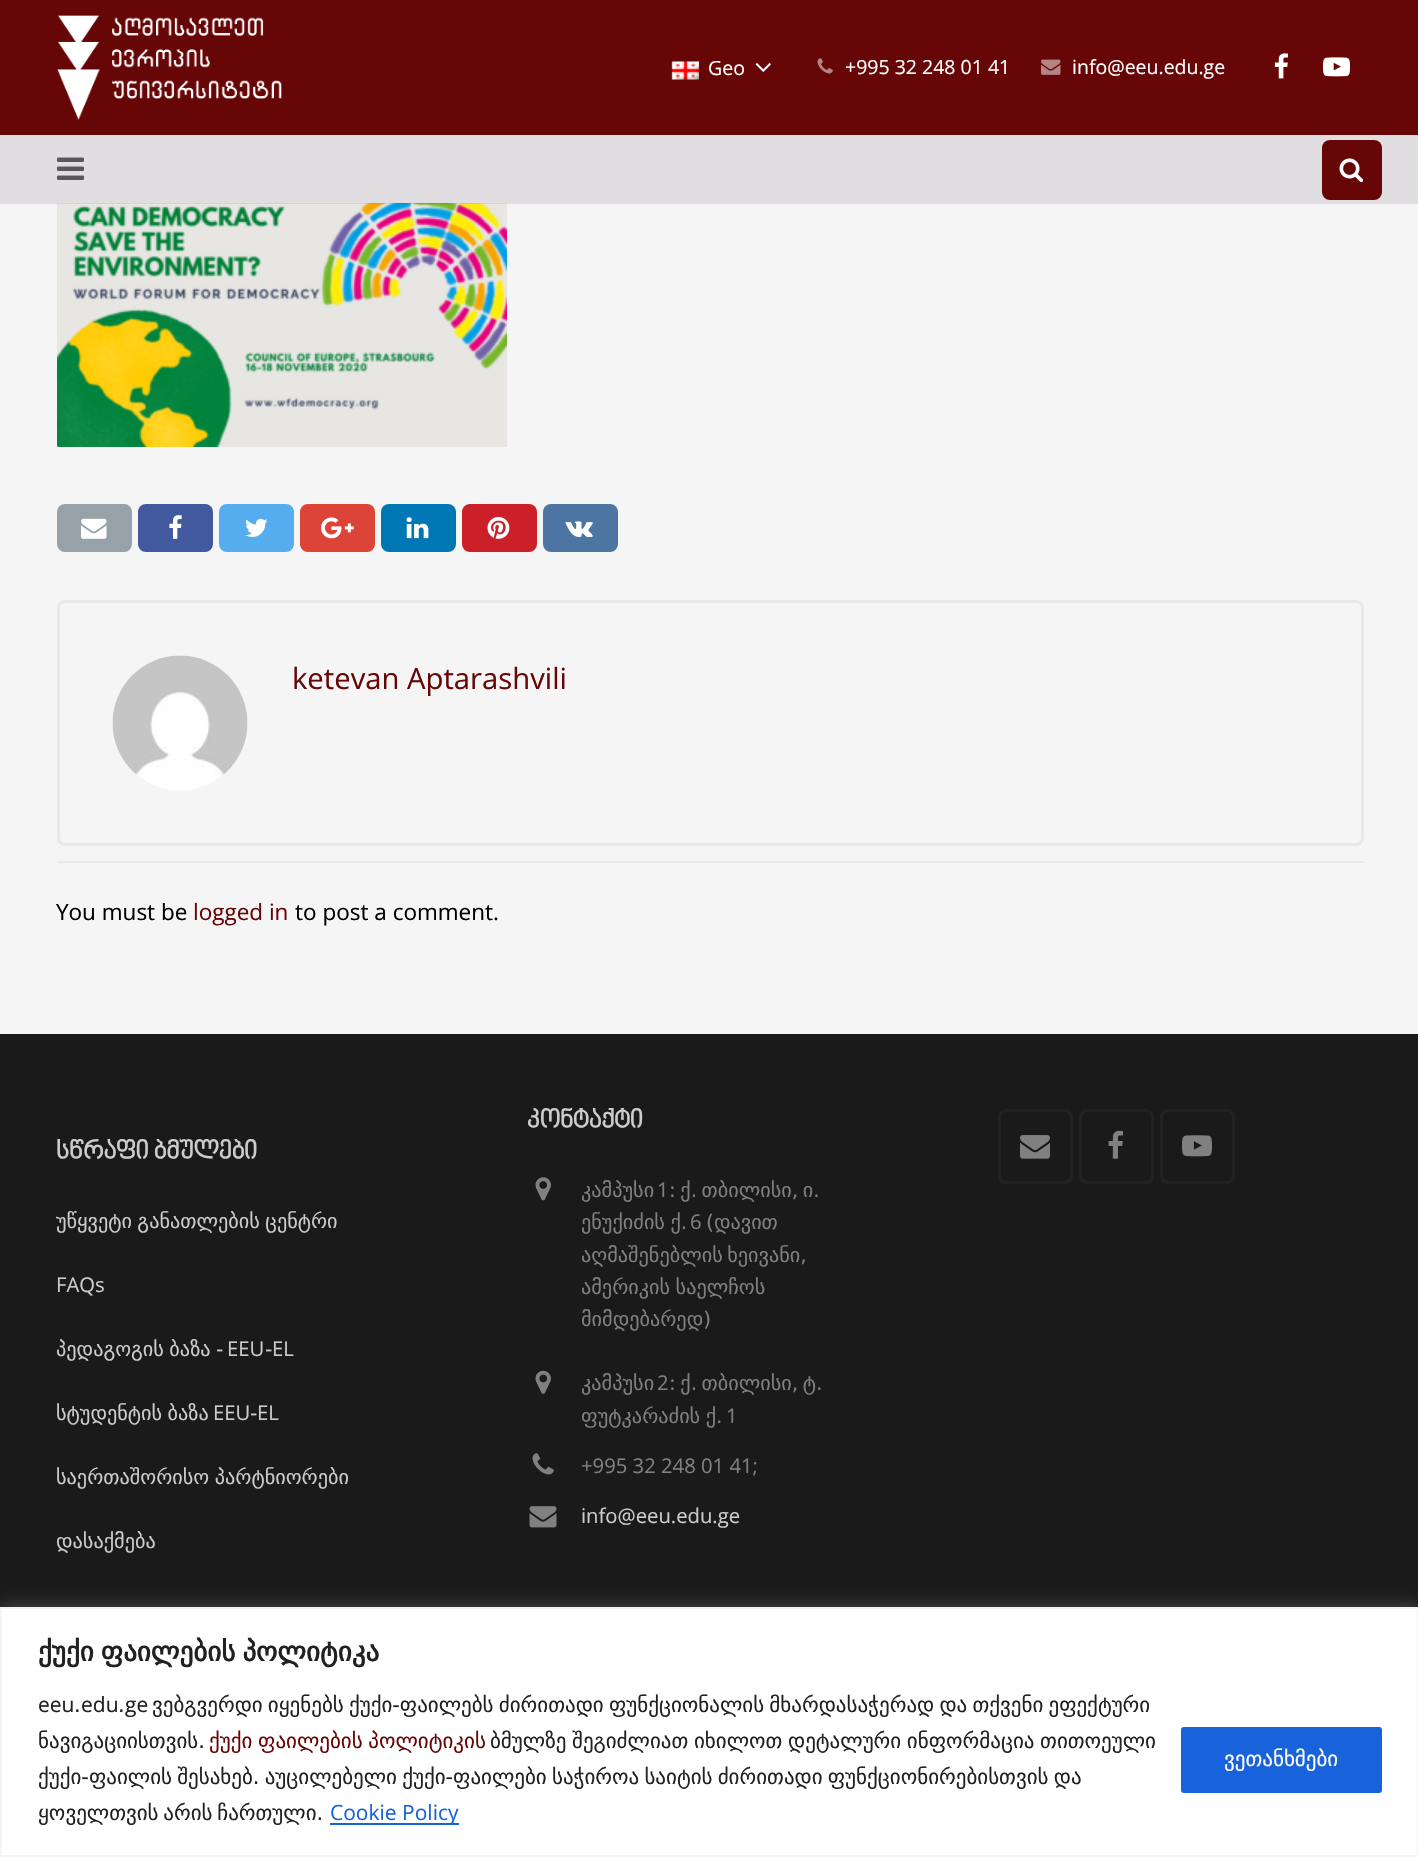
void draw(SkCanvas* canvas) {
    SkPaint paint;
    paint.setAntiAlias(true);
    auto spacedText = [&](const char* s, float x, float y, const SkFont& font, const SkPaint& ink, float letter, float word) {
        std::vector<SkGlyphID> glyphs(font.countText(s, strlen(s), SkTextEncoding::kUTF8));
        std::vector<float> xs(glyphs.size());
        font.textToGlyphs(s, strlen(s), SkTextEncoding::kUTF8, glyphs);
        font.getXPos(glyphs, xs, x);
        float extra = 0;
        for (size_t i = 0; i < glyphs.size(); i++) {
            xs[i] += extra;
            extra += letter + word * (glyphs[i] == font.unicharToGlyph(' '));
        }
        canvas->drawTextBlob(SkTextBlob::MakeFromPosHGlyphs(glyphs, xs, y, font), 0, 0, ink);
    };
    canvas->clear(0xFFF5F5F5);
    paint.setColor(0xFF670607);
    canvas->drawRect(SkRect::MakeXYWH(0, 0, 1418, 135), paint);
    canvas->drawImageRect(SkImages::DeferredFromEncodedData(SkData::MakeFromFileName("img1.png")), SkRect::MakeXYWH(57, 15, 225, 105), SkSamplingOptions());
    canvas->drawImageRect(SkImages::DeferredFromEncodedData(SkData::MakeFromFileName("img2.png")), SkRect::MakeXYWH(671, 61, 28, 19), SkSamplingOptions());
    SkFont font1(fontMgr->matchFamilyStyle("Open Sans", SkFontStyle::Normal()), 19.5f);
    font1.setSubpixel(true);
    paint.setColor(0xFFFFFFFF);
    canvas->drawString("Geo", 708, 75, font1, paint);
    canvas->drawImageRect(SkImages::DeferredFromEncodedData(SkData::MakeFromFileName("img3.png")), SkRect::MakeXYWH(755, 63, 16, 9), SkSamplingOptions());
    canvas->drawImageRect(SkImages::DeferredFromEncodedData(SkData::MakeFromFileName("img4.png")), SkRect::MakeXYWH(817, 58, 16, 16), SkSamplingOptions());
    canvas->drawString("+995 32 248 01 41", 845, 74, font1, paint);
    canvas->drawImageRect(SkImages::DeferredFromEncodedData(SkData::MakeFromFileName("img5.png")), SkRect::MakeXYWH(1041, 59, 20, 16), SkSamplingOptions());
    canvas->drawString("info@eeu.edu.ge", 1072, 74, font1, paint);
    canvas->drawImageRect(SkImages::DeferredFromEncodedData(SkData::MakeFromFileName("img6.png")), SkRect::MakeXYWH(1274, 53, 14, 26), SkSamplingOptions());
    canvas->drawImageRect(SkImages::DeferredFromEncodedData(SkData::MakeFromFileName("img7.png")), SkRect::MakeXYWH(1323, 57, 27, 20), SkSamplingOptions());
    canvas->drawImageRect(SkImages::DeferredFromEncodedData(SkData::MakeFromFileName("img10.png")), SkRect::MakeXYWH(57, 203, 450, 244), SkSamplingOptions());
    paint.setColor(0x14000000);
    canvas->drawRect(SkRect::MakeXYWH(0, 203, 1418, 1), paint);
    paint.setColor(0xFFE0DEE0);
    canvas->drawRect(SkRect::MakeXYWH(0, 135, 1418, 68), paint);
    canvas->drawImageRect(SkImages::DeferredFromEncodedData(SkData::MakeFromFileName("img8.png")), SkRect::MakeXYWH(57, 157, 27, 23), SkSamplingOptions());
    paint.setColor(0xFF670607);
    canvas->drawRoundRect(SkRect::MakeXYWH(1322, 140, 60, 60), 8, 8, paint);
    canvas->drawImageRect(SkImages::DeferredFromEncodedData(SkData::MakeFromFileName("img9.png")), SkRect::MakeXYWH(1339, 158, 25, 25), SkSamplingOptions());
    paint.setColor(0xFF96A2A8);
    canvas->drawRoundRect(SkRect::MakeXYWH(57, 504, 75, 48), 8, 8, paint);
    canvas->drawImageRect(SkImages::DeferredFromEncodedData(SkData::MakeFromFileName("img11.png")), SkRect::MakeXYWH(81, 518, 26, 21), SkSamplingOptions());
    paint.setColor(0xFF42599E);
    canvas->drawRoundRect(SkRect::MakeXYWH(138, 504, 75, 48), 8, 8, paint);
    canvas->drawImageRect(SkImages::DeferredFromEncodedData(SkData::MakeFromFileName("img12.png")), SkRect::MakeXYWH(169, 515, 13, 24), SkSamplingOptions());
    paint.setColor(0xFF55ACEE);
    canvas->drawRoundRect(SkRect::MakeXYWH(219, 504, 75, 48), 8, 8, paint);
    canvas->drawImageRect(SkImages::DeferredFromEncodedData(SkData::MakeFromFileName("img13.png")), SkRect::MakeXYWH(245, 518, 23, 19), SkSamplingOptions());
    paint.setColor(0xFFDB4437);
    canvas->drawRoundRect(SkRect::MakeXYWH(300, 504, 75, 48), 8, 8, paint);
    canvas->drawImageRect(SkImages::DeferredFromEncodedData(SkData::MakeFromFileName("img14.png")), SkRect::MakeXYWH(321, 517, 33, 22), SkSamplingOptions());
    paint.setColor(0xFF0077B5);
    canvas->drawRoundRect(SkRect::MakeXYWH(381, 504, 75, 48), 8, 8, paint);
    canvas->drawImageRect(SkImages::DeferredFromEncodedData(SkData::MakeFromFileName("img15.png")), SkRect::MakeXYWH(406, 517, 23, 22), SkSamplingOptions());
    paint.setColor(0xFFCB2027);
    canvas->drawRoundRect(SkRect::MakeXYWH(462, 504, 75, 48), 8, 8, paint);
    canvas->drawImageRect(SkImages::DeferredFromEncodedData(SkData::MakeFromFileName("img16.png")), SkRect::MakeXYWH(487, 517, 23, 22), SkSamplingOptions());
    paint.setColor(0xFF4C75A3);
    canvas->drawRoundRect(SkRect::MakeXYWH(543, 504, 75, 48), 8, 8, paint);
    canvas->drawImageRect(SkImages::DeferredFromEncodedData(SkData::MakeFromFileName("img17.png")), SkRect::MakeXYWH(565, 521, 28, 16), SkSamplingOptions());
    paint.setStyle(SkPaint::kStroke_Style);
    paint.setStrokeWidth(3);
    paint.setColor(0xFFE8E8E8);
    canvas->drawRoundRect(SkRect::MakeXYWH(58.5f, 601.5f, 1304, 243), 6.5f, 6.5f, paint);
    canvas->drawImageRect(SkImages::DeferredFromEncodedData(SkData::MakeFromFileName("img18.png")), SkRect::MakeXYWH(112, 655, 136, 135), SkSamplingOptions());
    SkFont font2(fontMgr->matchFamilyStyle("Open Sans", SkFontStyle::Normal()), 29.25f);
    font2.setSubpixel(true);
    paint.setStyle(SkPaint::kFill_Style);
    paint.setColor(0xFF670607);
    canvas->drawString("ketevan Aptarashvili", 292, 689, font2, paint);
    paint.setColor(0xFFE8E8E8);
    canvas->drawRect(SkRect::MakeXYWH(57, 861, 1307, 2), paint);
    SkFont font3(fontMgr->matchFamilyStyle("Open Sans", SkFontStyle::Normal()), 22.5f);
    font3.setSubpixel(true);
    paint.setColor(0xFF000000);
    canvas->drawString("You must be", 56, 920, font3, paint);
    paint.setColor(0xFF670607);
    canvas->drawString("logged in", 193, 920, font3, paint);
    paint.setColor(0xFF000000);
    canvas->drawString("to post a comment.", 295, 920, font3, paint);
    paint.setColor(0xFF1A1A1A);
    canvas->drawRect(SkRect::MakeXYWH(0, 1034, 1418, 573), paint);
    SkFont font4(fontMgr->matchFamilyStyle("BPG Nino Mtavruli", SkFontStyle::BoldItalic()), 25.5f);
    font4.setSubpixel(true);
    paint.setColor(0xFFCCCCCC);
    canvas->drawString("სწრაფი ბმულები", 56, 1160, font4, paint);
    SkFont font5(fontMgr->matchFamilyStyle("DejaVu Sans", SkFontStyle::Normal()), 20.25f);
    font5.setSubpixel(true);
    spacedText("უწყვეტი განათლების ცენტრი", 56, 1228, font5, paint, 0, -1);
    SkFont font6(fontMgr->matchFamilyStyle("Open Sans", SkFontStyle::Normal()), 20.25f);
    font6.setSubpixel(true);
    canvas->drawString("FAQs", 56, 1292, font6, paint);
    spacedText("პედაგოგის ბაზა -", 56, 1356, font5, paint, 0, -1);
    canvas->drawString("EEU", 227, 1356, font6, paint);
    canvas->drawString("-", 265, 1356, font5, paint);
    canvas->drawString("EL", 272, 1356, font6, paint);
    spacedText("სტუდენტის ბაზა", 56, 1420, font5, paint, 0, -1);
    canvas->drawString("EEU", 213, 1420, font6, paint);
    canvas->drawString("-", 250, 1420, font5, paint);
    canvas->drawString("EL", 257, 1420, font6, paint);
    spacedText("საერთაშორისო პარტნიორები", 56, 1484, font5, paint, 0, -1);
    canvas->drawString("დასაქმება", 56, 1548, font5, paint);
    canvas->drawString("კონტაქტი", 527, 1129, font4, paint);
    canvas->drawImageRect(SkImages::DeferredFromEncodedData(SkData::MakeFromFileName("img19.png")), SkRect::MakeXYWH(535, 1177, 16, 24), SkSamplingOptions());
    paint.setColor(0xFF808080);
    canvas->drawString("კამპუსი", 581, 1197, font5, paint);
    canvas->drawString("1", 657, 1197, font6, paint);
    spacedText(": ქ. თბილისი, ი.", 669, 1197, font5, paint, 0, -2);
    spacedText("ენუქიძის ქ.", 581, 1229, font5, paint, 0, -1);
    canvas->drawString("6", 690, 1229, font6, paint);
    canvas->drawString("(დავით", 706, 1229, font5, paint);
    spacedText("აღმაშენებლის ხეივანი,", 581, 1262, font5, paint, 0, -2);
    spacedText("ამერიკის საელჩოს", 581, 1294, font5, paint, 0, -1);
    canvas->drawString("მიმდებარედ)", 581, 1326, font5, paint);
    canvas->drawImageRect(SkImages::DeferredFromEncodedData(SkData::MakeFromFileName("img20.png")), SkRect::MakeXYWH(535, 1370, 16, 24), SkSamplingOptions());
    canvas->drawString("კამპუსი", 581, 1390, font5, paint);
    canvas->drawString("2", 657, 1390, font6, paint);
    spacedText(": ქ. თბილისი, ტ.", 669, 1390, font5, paint, 0, -2);
    spacedText("ფუტკარაძის ქ.", 581, 1423, font5, paint, 0, -1);
    canvas->drawString("1", 726, 1423, font6, paint);
    canvas->drawImageRect(SkImages::DeferredFromEncodedData(SkData::MakeFromFileName("img21.png")), SkRect::MakeXYWH(532, 1453, 22, 22), SkSamplingOptions());
    canvas->drawString("+995 32 248 01 41;", 581, 1473, font6, paint);
    canvas->drawImageRect(SkImages::DeferredFromEncodedData(SkData::MakeFromFileName("img22.png")), SkRect::MakeXYWH(529, 1506, 28, 22), SkSamplingOptions());
    paint.setColor(0xFFCCCCCC);
    canvas->drawString("info@eeu.edu.ge", 581, 1523, font6, paint);
    paint.setStyle(SkPaint::kStroke_Style);
    paint.setColor(0xFF222222);
    canvas->drawRoundRect(SkRect::MakeXYWH(999.5f, 1110.5f, 72, 72), 6.5f, 6.5f, paint);
    canvas->drawImageRect(SkImages::DeferredFromEncodedData(SkData::MakeFromFileName("img23.png")), SkRect::MakeXYWH(1020, 1135, 30, 24), SkSamplingOptions());
    canvas->drawRoundRect(SkRect::MakeXYWH(1080.5f, 1110.5f, 72, 72), 6.5f, 6.5f, paint);
    canvas->drawImageRect(SkImages::DeferredFromEncodedData(SkData::MakeFromFileName("img24.png")), SkRect::MakeXYWH(1108, 1130, 16, 29), SkSamplingOptions());
    canvas->drawRoundRect(SkRect::MakeXYWH(1161.5f, 1110.5f, 72, 72), 6.5f, 6.5f, paint);
    canvas->drawImageRect(SkImages::DeferredFromEncodedData(SkData::MakeFromFileName("img25.png")), SkRect::MakeXYWH(1182, 1135, 30, 22), SkSamplingOptions());
    paint.setStyle(SkPaint::kFill_Style);
    paint.setColor(0x4DACABAB);
    paint.setMaskFilter(SkMaskFilter::MakeBlur(kNormal_SkBlurStyle, 7.5f));
    canvas->drawRect(SkRect::MakeXYWH(0, 1605, 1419, 251), paint);
    paint.setMaskFilter(nullptr);
    paint.setColor(0xFFFFFFFF);
    canvas->drawRect(SkRect::MakeXYWH(1, 1608, 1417, 248), paint);
    paint.setStyle(SkPaint::kStroke_Style);
    paint.setStrokeWidth(2);
    paint.setColor(0xFFF4F4F4);
    canvas->drawRect(SkRect::MakeXYWH(1, 1608, 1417, 248), paint);
    SkFont font7(fontMgr->matchFamilyStyle("DejaVu Sans", SkFontStyle::Bold()), 27);
    font7.setSubpixel(true);
    paint.setStyle(SkPaint::kFill_Style);
    paint.setColor(0xFF212121);
    spacedText("ქუქი ფაილების პოლიტიკა", 38, 1661, font7, paint, 0, -1.5f);
    SkFont font8(fontMgr->matchFamilyStyle("Open Sans", SkFontStyle::Normal()), 21);
    font8.setSubpixel(true);
    canvas->drawString("eeu", 38, 1712, font8, paint);
    SkFont font9(fontMgr->matchFamilyStyle("DejaVu Sans", SkFontStyle::Normal()), 21);
    font9.setSubpixel(true);
    canvas->drawString(".", 74, 1712, font9, paint);
    canvas->drawString("edu", 81, 1712, font8, paint);
    canvas->drawString(".", 118, 1712, font9, paint);
    canvas->drawString("ge", 125, 1712, font8, paint);
    spacedText("ვებგვერდი იყენებს ქუქი-ფაილებს ძირითადი ფუნქციონალის მხარდასაჭერად და თქვენი ეფექტური", 152, 1712, font9, paint, 0, -1.5f);
    canvas->drawString("ნავიგაციისთვის.", 38, 1748, font9, paint);
    paint.setColor(0xFF670607);
    spacedText("ქუქი ფაილების პოლიტიკის", 209, 1748, font9, paint, 0, -1);
    paint.setColor(0xFF212121);
    spacedText("ბმულზე შეგიძლიათ იხილოთ დეტალური ინფორმაცია თითოეული", 490, 1748, font9, paint, 0, -1);
    spacedText("ქუქი-ფაილის შესახებ. აუცილებელი ქუქი-ფაილები საჭიროა საიტის ძირითადი ფუნქციონირებისთვის და", 38, 1784, font9, paint, 0, -1.5f);
    spacedText("ყოველთვის არის ჩართული.", 38, 1820, font9, paint, 0, -2);
    paint.setColor(0xFF1863DC);
    canvas->drawRect(SkRect::MakeXYWH(330, 1823, 129, 2), paint);
    canvas->drawString("Cookie Policy", 330, 1820, font8, paint);
    canvas->drawRoundRect(SkRect::MakeXYWH(1182.5f, 1728.5f, 198, 63), 1.5f, 1.5f, paint);
    paint.setStyle(SkPaint::kStroke_Style);
    paint.setStrokeWidth(3);
    canvas->drawRoundRect(SkRect::MakeXYWH(1182.5f, 1728.5f, 198, 63), 1.5f, 1.5f, paint);
    paint.setStyle(SkPaint::kFill_Style);
    paint.setColor(0xFFFFFFFF);
    canvas->drawString("ვეთანხმები", 1224, 1766, font9, paint);
}
